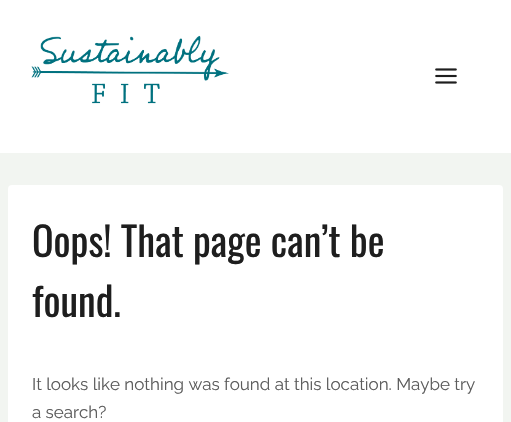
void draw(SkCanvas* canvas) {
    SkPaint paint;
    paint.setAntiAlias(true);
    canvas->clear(0xFFF2F5F1);
    paint.setColor(0xFFFFFFFF);
    canvas->drawRect(SkRect::MakeXYWH(0, 0, 511, 153), paint);
    canvas->drawImageRect(SkImages::DeferredFromEncodedData(SkData::MakeFromFileName("img1.png")), SkRect::MakeXYWH(31, 35, 198, 69), SkSamplingOptions());
    canvas->drawImageRect(SkImages::DeferredFromEncodedData(SkData::MakeFromFileName("img2.png")), SkRect::MakeXYWH(435, 68, 22, 16), SkSamplingOptions());
    canvas->drawRoundRect(SkRect::MakeXYWH(8, 185, 495, 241), 4, 4, paint);
    SkFont font1(fontMgr->matchFamilyStyle("Oswald", SkFontStyle::Normal()), 40);
    font1.setSubpixel(true);
    paint.setColor(0xFF1E1E1E);
    canvas->drawString("Oops! That page can’t be", 32, 257, font1, paint);
    canvas->drawString("found.", 32, 317, font1, paint);
    SkFont font2(fontMgr->matchFamilyStyle("Raleway", SkFontStyle::Normal()), 17);
    font2.setSubpixel(true);
    paint.setColor(0xFF5C5C5C);
    canvas->drawString("It looks like nothing was found at this location. Maybe try", 32, 390, font2, paint);
    canvas->drawString("a search?", 32, 418, font2, paint);
}
